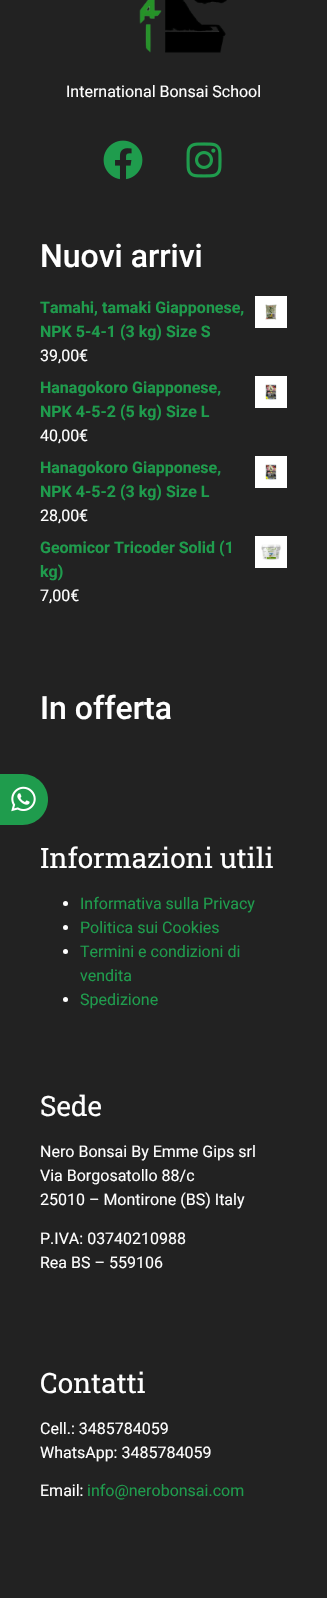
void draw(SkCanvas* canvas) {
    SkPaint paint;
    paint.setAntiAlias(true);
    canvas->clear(0xFF222222);
    paint.setColor(0xFF1F9C4D);
    canvas->drawPath(SkPathBuilder().moveTo(-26, 774).lineTo(22.5f, 774).cubicTo(36.5f, 774, 48, 785.5f, 48, 799.5f).cubicTo(48, 813.5f, 36.5f, 825, 22.5f, 825).lineTo(-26, 825).close().detach(), paint);
    canvas->drawImageRect(SkImages::DeferredFromEncodedData(SkData::MakeFromFileName("img1.png")), SkRect::MakeXYWH(11, 786, 25, 26), SkSamplingOptions());
    canvas->drawImageRect(SkImages::DeferredFromEncodedData(SkData::MakeFromFileName("img2.png")), SkRect::MakeXYWH(139, 0, 88, 53), SkSamplingOptions());
    SkFont font1(fontMgr->matchFamilyStyle("Roboto", SkFontStyle::Normal()), 16);
    font1.setSubpixel(true);
    paint.setColor(0xFFFFFFFF);
    canvas->drawString("International Bonsai School", 66, 97, font1, paint);
    canvas->drawImageRect(SkImages::DeferredFromEncodedData(SkData::MakeFromFileName("img3.png")), SkRect::MakeXYWH(103, 140, 40, 40), SkSamplingOptions());
    canvas->drawImageRect(SkImages::DeferredFromEncodedData(SkData::MakeFromFileName("img4.png")), SkRect::MakeXYWH(186, 142, 36, 36), SkSamplingOptions());
    SkFont font2(fontMgr->matchFamilyStyle("Roboto", SkFontStyle(500, SkFontStyle::kNormal_Width, SkFontStyle::kUpright_Slant)), 32);
    font2.setSubpixel(true);
    canvas->drawString("Nuovi arrivi", 40, 267, font2, paint);
    SkFont font3(fontMgr->matchFamilyStyle("Roboto", SkFontStyle::Bold()), 16);
    font3.setSubpixel(true);
    paint.setColor(0xFF1F9C4D);
    canvas->drawString("Tamahi, tamaki Giapponese,", 40, 313, font3, paint);
    canvas->drawImageRect(SkImages::DeferredFromEncodedData(SkData::MakeFromFileName("img5.png")), SkRect::MakeXYWH(255, 296, 32, 32), SkSamplingOptions());
    canvas->drawString("NPK 5-4-1 (3 kg) Size S", 40, 337, font3, paint);
    paint.setColor(0xFFFFFFFF);
    canvas->drawString("39,00€", 40, 361, font1, paint);
    paint.setColor(0xFF1F9C4D);
    canvas->drawString("Hanagokoro Giapponese,", 40, 393, font3, paint);
    canvas->drawImageRect(SkImages::DeferredFromEncodedData(SkData::MakeFromFileName("img6.png")), SkRect::MakeXYWH(255, 376, 32, 32), SkSamplingOptions());
    canvas->drawString("NPK 4-5-2 (5 kg) Size L", 40, 417, font3, paint);
    paint.setColor(0xFFFFFFFF);
    canvas->drawString("40,00€", 40, 441, font1, paint);
    paint.setColor(0xFF1F9C4D);
    canvas->drawString("Hanagokoro Giapponese,", 40, 473, font3, paint);
    canvas->drawImageRect(SkImages::DeferredFromEncodedData(SkData::MakeFromFileName("img6.png")), SkRect::MakeXYWH(255, 456, 32, 32), SkSamplingOptions());
    canvas->drawString("NPK 4-5-2 (3 kg) Size L", 40, 497, font3, paint);
    paint.setColor(0xFFFFFFFF);
    canvas->drawString("28,00€", 40, 521, font1, paint);
    paint.setColor(0xFF1F9C4D);
    canvas->drawString("Geomicor Tricoder Solid (1", 40, 553, font3, paint);
    canvas->drawImageRect(SkImages::DeferredFromEncodedData(SkData::MakeFromFileName("img7.png")), SkRect::MakeXYWH(255, 536, 32, 32), SkSamplingOptions());
    canvas->drawString("kg)", 40, 577, font3, paint);
    paint.setColor(0xFFFFFFFF);
    canvas->drawString("7,00€", 40, 601, font1, paint);
    canvas->drawString("In offerta", 40, 719, font2, paint);
    SkFont font4(fontMgr->matchFamilyStyle("Roboto Slab", SkFontStyle::Normal()), 28);
    font4.setSubpixel(true);
    canvas->drawString("Informazioni utili", 40, 868, font4, paint);
    canvas->drawCircle(65.5f, 903.5f, 2.5f, paint);
    paint.setColor(0xFF1F9C4D);
    canvas->drawString("Informativa sulla Privacy", 80, 909, font1, paint);
    paint.setColor(0xFFFFFFFF);
    canvas->drawCircle(65.5f, 927.5f, 2.5f, paint);
    paint.setColor(0xFF1F9C4D);
    canvas->drawString("Politica sui Cookies", 80, 933, font1, paint);
    paint.setColor(0xFFFFFFFF);
    canvas->drawCircle(65.5f, 951.5f, 2.5f, paint);
    paint.setColor(0xFF1F9C4D);
    canvas->drawString("Termini e condizioni di", 80, 957, font1, paint);
    canvas->drawString("vendita", 80, 981, font1, paint);
    paint.setColor(0xFFFFFFFF);
    canvas->drawCircle(65.5f, 999.5f, 2.5f, paint);
    paint.setColor(0xFF1F9C4D);
    canvas->drawString("Spedizione", 80, 1005, font1, paint);
    paint.setColor(0xFFFFFFFF);
    canvas->drawString("Sede", 40, 1116, font4, paint);
    canvas->drawString("Nero Bonsai By Emme Gips srl", 40, 1157, font1, paint);
    canvas->drawString("Via Borgosatollo 88/c", 40, 1181, font1, paint);
    canvas->drawString("25010 – Montirone (BS) Italy", 40, 1205, font1, paint);
    canvas->drawString("P.IVA: 03740210988", 40, 1244, font1, paint);
    canvas->drawString("Rea BS – 559106", 40, 1268, font1, paint);
    canvas->drawString("Contatti", 40, 1393, font4, paint);
    canvas->drawString("Cell.: 3485784059", 40, 1434, font1, paint);
    canvas->drawString("WhatsApp: 3485784059", 40, 1458, font1, paint);
    canvas->drawString("Email:", 40, 1496, font1, paint);
    paint.setColor(0xFF1F9C4D);
    canvas->drawString("info@nerobonsai.com", 87, 1496, font1, paint);
}
